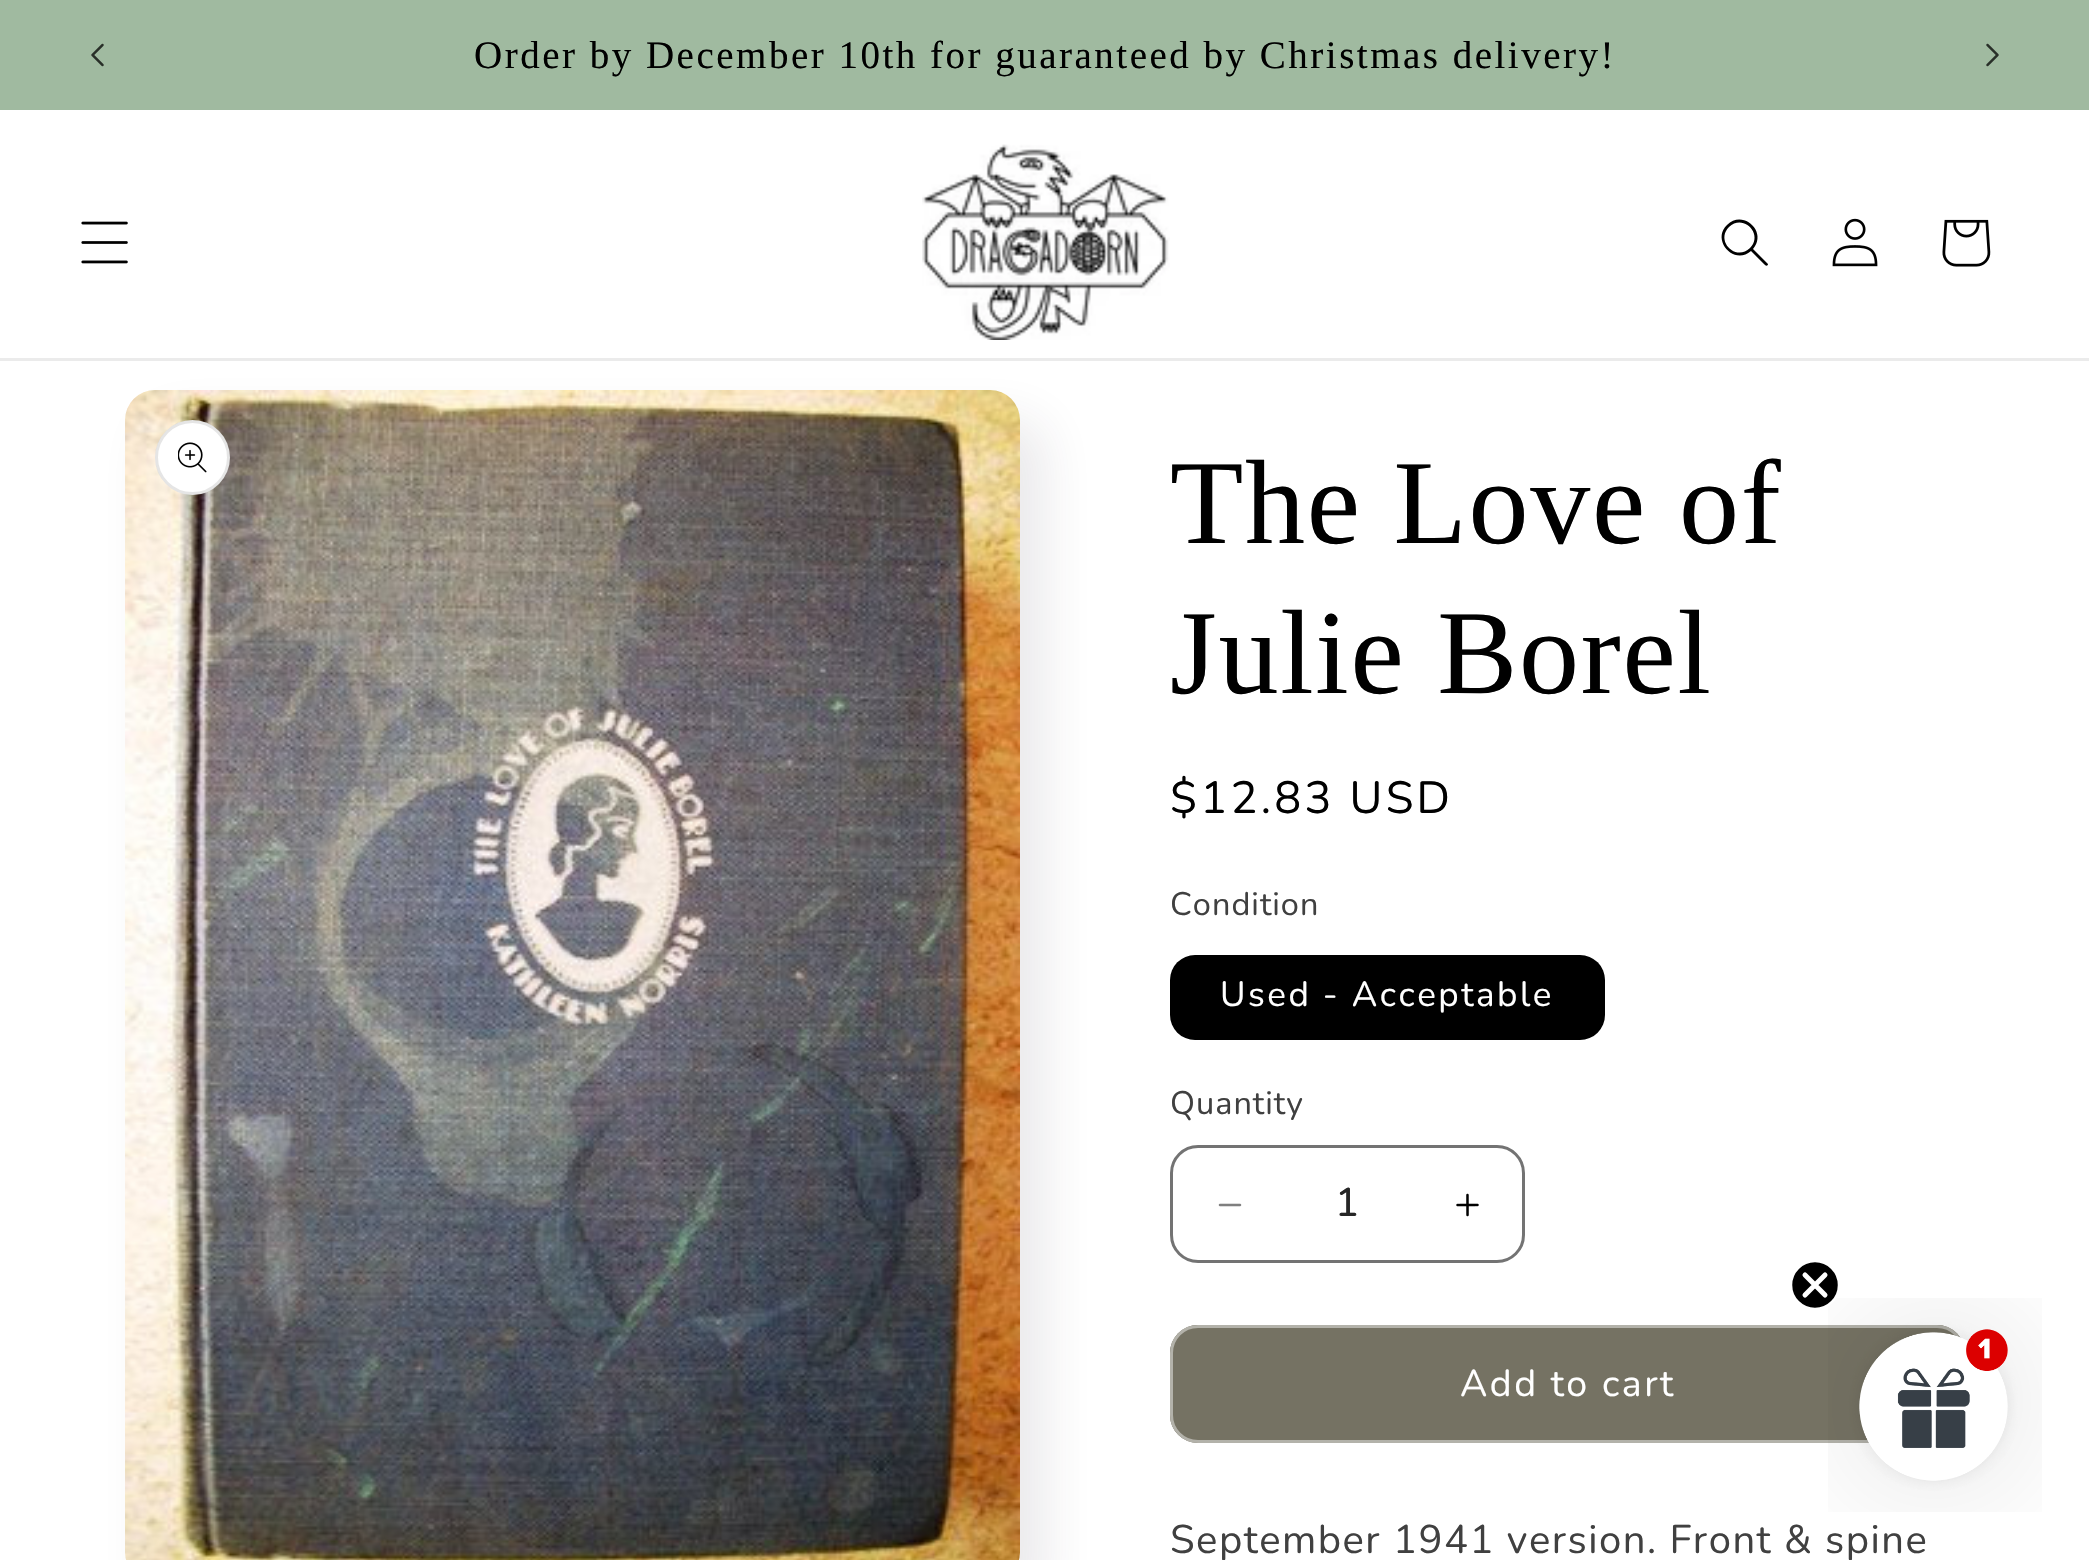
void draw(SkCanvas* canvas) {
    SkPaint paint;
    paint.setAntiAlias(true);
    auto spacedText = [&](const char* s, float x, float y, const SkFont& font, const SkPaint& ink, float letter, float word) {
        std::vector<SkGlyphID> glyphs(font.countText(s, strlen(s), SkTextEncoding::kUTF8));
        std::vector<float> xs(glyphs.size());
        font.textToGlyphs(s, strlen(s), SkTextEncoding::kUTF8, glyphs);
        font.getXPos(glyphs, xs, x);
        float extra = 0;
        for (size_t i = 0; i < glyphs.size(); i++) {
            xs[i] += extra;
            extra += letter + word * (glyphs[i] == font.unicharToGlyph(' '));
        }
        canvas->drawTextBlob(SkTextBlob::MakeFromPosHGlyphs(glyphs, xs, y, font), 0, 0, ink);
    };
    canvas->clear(0xFFFFFFFF);
    paint.setColor(0xFFA0BAA0);
    canvas->drawRect(SkRect::MakeXYWH(0, 0, 2089, 110), paint);
    canvas->drawImageRect(SkImages::DeferredFromEncodedData(SkData::MakeFromFileName("img1.png")), SkRect::MakeXYWH(91, 43, 13, 24), SkSamplingOptions());
    SkFont font1(fontMgr->matchFamilyStyle("Liberation Serif", SkFontStyle::Normal()), 39);
    font1.setSubpixel(true);
    paint.setColor(0xFF000000);
    spacedText("Order by December 10th for guaranteed by Christmas delivery!", 474, 68, font1, paint, 2.5f, 0);
    canvas->drawImageRect(SkImages::DeferredFromEncodedData(SkData::MakeFromFileName("img2.png")), SkRect::MakeXYWH(1986, 43, 13, 24), SkSamplingOptions());
    paint.setColor(0x1A2E2A39);
    paint.setMaskFilter(SkMaskFilter::MakeBlur(kNormal_SkBlurStyle, 25));
    canvas->drawRoundRect(SkRect::MakeXYWH(150, 420, 895, 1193), 30, 30, paint);
    paint.setMaskFilter(nullptr);
    paint.setColor(0xFFEBEBEB);
    canvas->drawRect(SkRect::MakeXYWH(0, 358, 2089, 3), paint);
    canvas->drawImageRect(SkImages::DeferredFromEncodedData(SkData::MakeFromFileName("img3.png")), SkRect::MakeXYWH(81, 221, 47, 43), SkSamplingOptions());
    canvas->drawImageRect(SkImages::DeferredFromEncodedData(SkData::MakeFromFileName("img4.png")), SkRect::MakeXYWH(922, 144, 248, 196), SkSamplingOptions());
    paint.setColor(0xFF000000);
    canvas->drawPath(SkPathBuilder(SkPathFillType::kEvenOdd).moveTo(1750, 248).cubicTo(1736, 262, 1715, 241, 1729, 227).cubicTo(1743, 213, 1764, 234, 1750, 248).moveTo(1751, 251).cubicTo(1734, 266, 1711, 240, 1727, 225).cubicTo(1743, 209, 1768, 232, 1753, 249).lineTo(1768, 264).cubicTo(1768, 266, 1766, 266, 1765, 265).close().detach(), paint);
    canvas->drawImageRect(SkImages::DeferredFromEncodedData(SkData::MakeFromFileName("img5.png")), SkRect::MakeXYWH(1832, 218, 46, 49), SkSamplingOptions());
    canvas->drawImageRect(SkImages::DeferredFromEncodedData(SkData::MakeFromFileName("img6.png")), SkRect::MakeXYWH(1942, 219, 49, 48), SkSamplingOptions());
    paint.setColor(0xFFFFFFFF);
    canvas->drawRoundRect(SkRect::MakeXYWH(125, 390, 895, 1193), 30, 30, paint);
    canvas->drawImageRect(SkImages::DeferredFromEncodedData(SkData::MakeFromFileName("img7.png")), SkRect::MakeXYWH(125, 390, 895, 1170), SkSamplingOptions());
    canvas->drawCircle(192.5f, 457.5f, 37.5f, paint);
    paint.setStyle(SkPaint::kStroke_Style);
    paint.setStrokeWidth(3);
    paint.setColor(0x1A000000);
    canvas->drawCircle(192.5f, 457.5f, 36, paint);
    canvas->drawImageRect(SkImages::DeferredFromEncodedData(SkData::MakeFromFileName("img8.png")), SkRect::MakeXYWH(178, 442, 29, 31), SkSamplingOptions());
    SkFont font2(fontMgr->matchFamilyStyle("Liberation Serif", SkFontStyle::Normal()), 120);
    font2.setSubpixel(true);
    paint.setStyle(SkPaint::kFill_Style);
    paint.setColor(0xFF000000);
    spacedText("The Love of", 1170, 543, font2, paint, 1.75f, 0);
    spacedText("Julie Borel", 1170, 693, font2, paint, 1.75f, 0);
    SkFont font3(fontMgr->matchFamilyStyle("Nunito", SkFontStyle::Normal()), 45);
    font3.setSubpixel(true);
    spacedText("$12.83 USD", 1170, 813, font3, paint, 3.25f, 0);
    SkFont font4(fontMgr->matchFamilyStyle("Nunito", SkFontStyle::Normal()), 32.5f);
    font4.setSubpixel(true);
    paint.setColor(0xFF404040);
    spacedText("Condition", 1170, 915, font4, paint, 1, 0);
    paint.setColor(0xFF000000);
    canvas->drawRoundRect(SkRect::MakeXYWH(1170, 955, 435, 85), 25, 25, paint);
    SkFont font5(fontMgr->matchFamilyStyle("Nunito", SkFontStyle::Normal()), 35);
    font5.setSubpixel(true);
    paint.setColor(0xFFFFFFFF);
    spacedText("Used - Acceptable", 1220, 1006, font5, paint, 2.5f, 0);
    paint.setColor(0xFF404040);
    spacedText("Quantity", 1170, 1114, font4, paint, 1, 0);
    canvas->drawImageRect(SkImages::DeferredFromEncodedData(SkData::MakeFromFileName("img9.png")), SkRect::MakeXYWH(1218, 1203, 24, 4), SkSamplingOptions());
    canvas->drawImageRect(SkImages::DeferredFromEncodedData(SkData::MakeFromFileName("img10.png")), SkRect::MakeXYWH(1456, 1193, 23, 24), SkSamplingOptions());
    paint.setStyle(SkPaint::kStroke_Style);
    paint.setColor(0xFF737373);
    canvas->drawRoundRect(SkRect::MakeXYWH(1171.5f, 1146.5f, 352, 115), 26.5f, 26.5f, paint);
    SkFont font6(fontMgr->matchFamilyStyle("Nunito", SkFontStyle(500, SkFontStyle::kNormal_Width, SkFontStyle::kUpright_Slant)), 40);
    font6.setSubpixel(true);
    paint.setStyle(SkPaint::kFill_Style);
    paint.setColor(0xFF262626);
    canvas->drawString("1", 1335, 1216, font6, paint);
    paint.setColor(0xFF757263);
    canvas->drawRoundRect(SkRect::MakeXYWH(1170, 1325, 795, 118), 28, 28, paint);
    paint.setStyle(SkPaint::kStroke_Style);
    canvas->drawRoundRect(SkRect::MakeXYWH(1171.5f, 1326.5f, 792, 115), 26.5f, 26.5f, paint);
    paint.setColor(0x73FFFFFF);
    canvas->drawRoundRect(SkRect::MakeXYWH(1171.5f, 1326.5f, 792, 115), 26.5f, 26.5f, paint);
    SkFont font7(fontMgr->matchFamilyStyle("Nunito", SkFontStyle::Normal()), 37.5f);
    font7.setSubpixel(true);
    paint.setStyle(SkPaint::kFill_Style);
    paint.setColor(0xFFFFFFFF);
    spacedText("Add to cart", 1460, 1396, font7, paint, 2.5f, 0);
    SkFont font8(fontMgr->matchFamilyStyle("Nunito", SkFontStyle::Normal()), 40);
    font8.setSubpixel(true);
    paint.setColor(0xFF404040);
    spacedText("September 1941 version. Front & spine", 1170, 1553, font8, paint, 1.5f, 0);
    canvas->drawImageRect(SkImages::DeferredFromEncodedData(SkData::MakeFromFileName("img11.png")), SkRect::MakeXYWH(1828, 1298, 214, 214), SkSamplingOptions());
    paint.setColor(0xFF000000);
    canvas->drawCircle(1815, 1285, 24, paint);
    paint.setStyle(SkPaint::kStroke_Style);
    paint.setStrokeWidth(2.5f);
    paint.setColor(0xFFFFFFFF);
    canvas->drawCircle(1815, 1285, 24, paint);
    paint.setStrokeWidth(5);
    paint.setStrokeCap(SkPaint::kRound_Cap);
    paint.setStrokeJoin(SkPaint::kRound_Join);
    canvas->drawPath(SkPathBuilder().moveTo(1805, 1275).lineTo(1825, 1295).moveTo(1805, 1295).lineTo(1825, 1275).close().detach(), paint);
}
